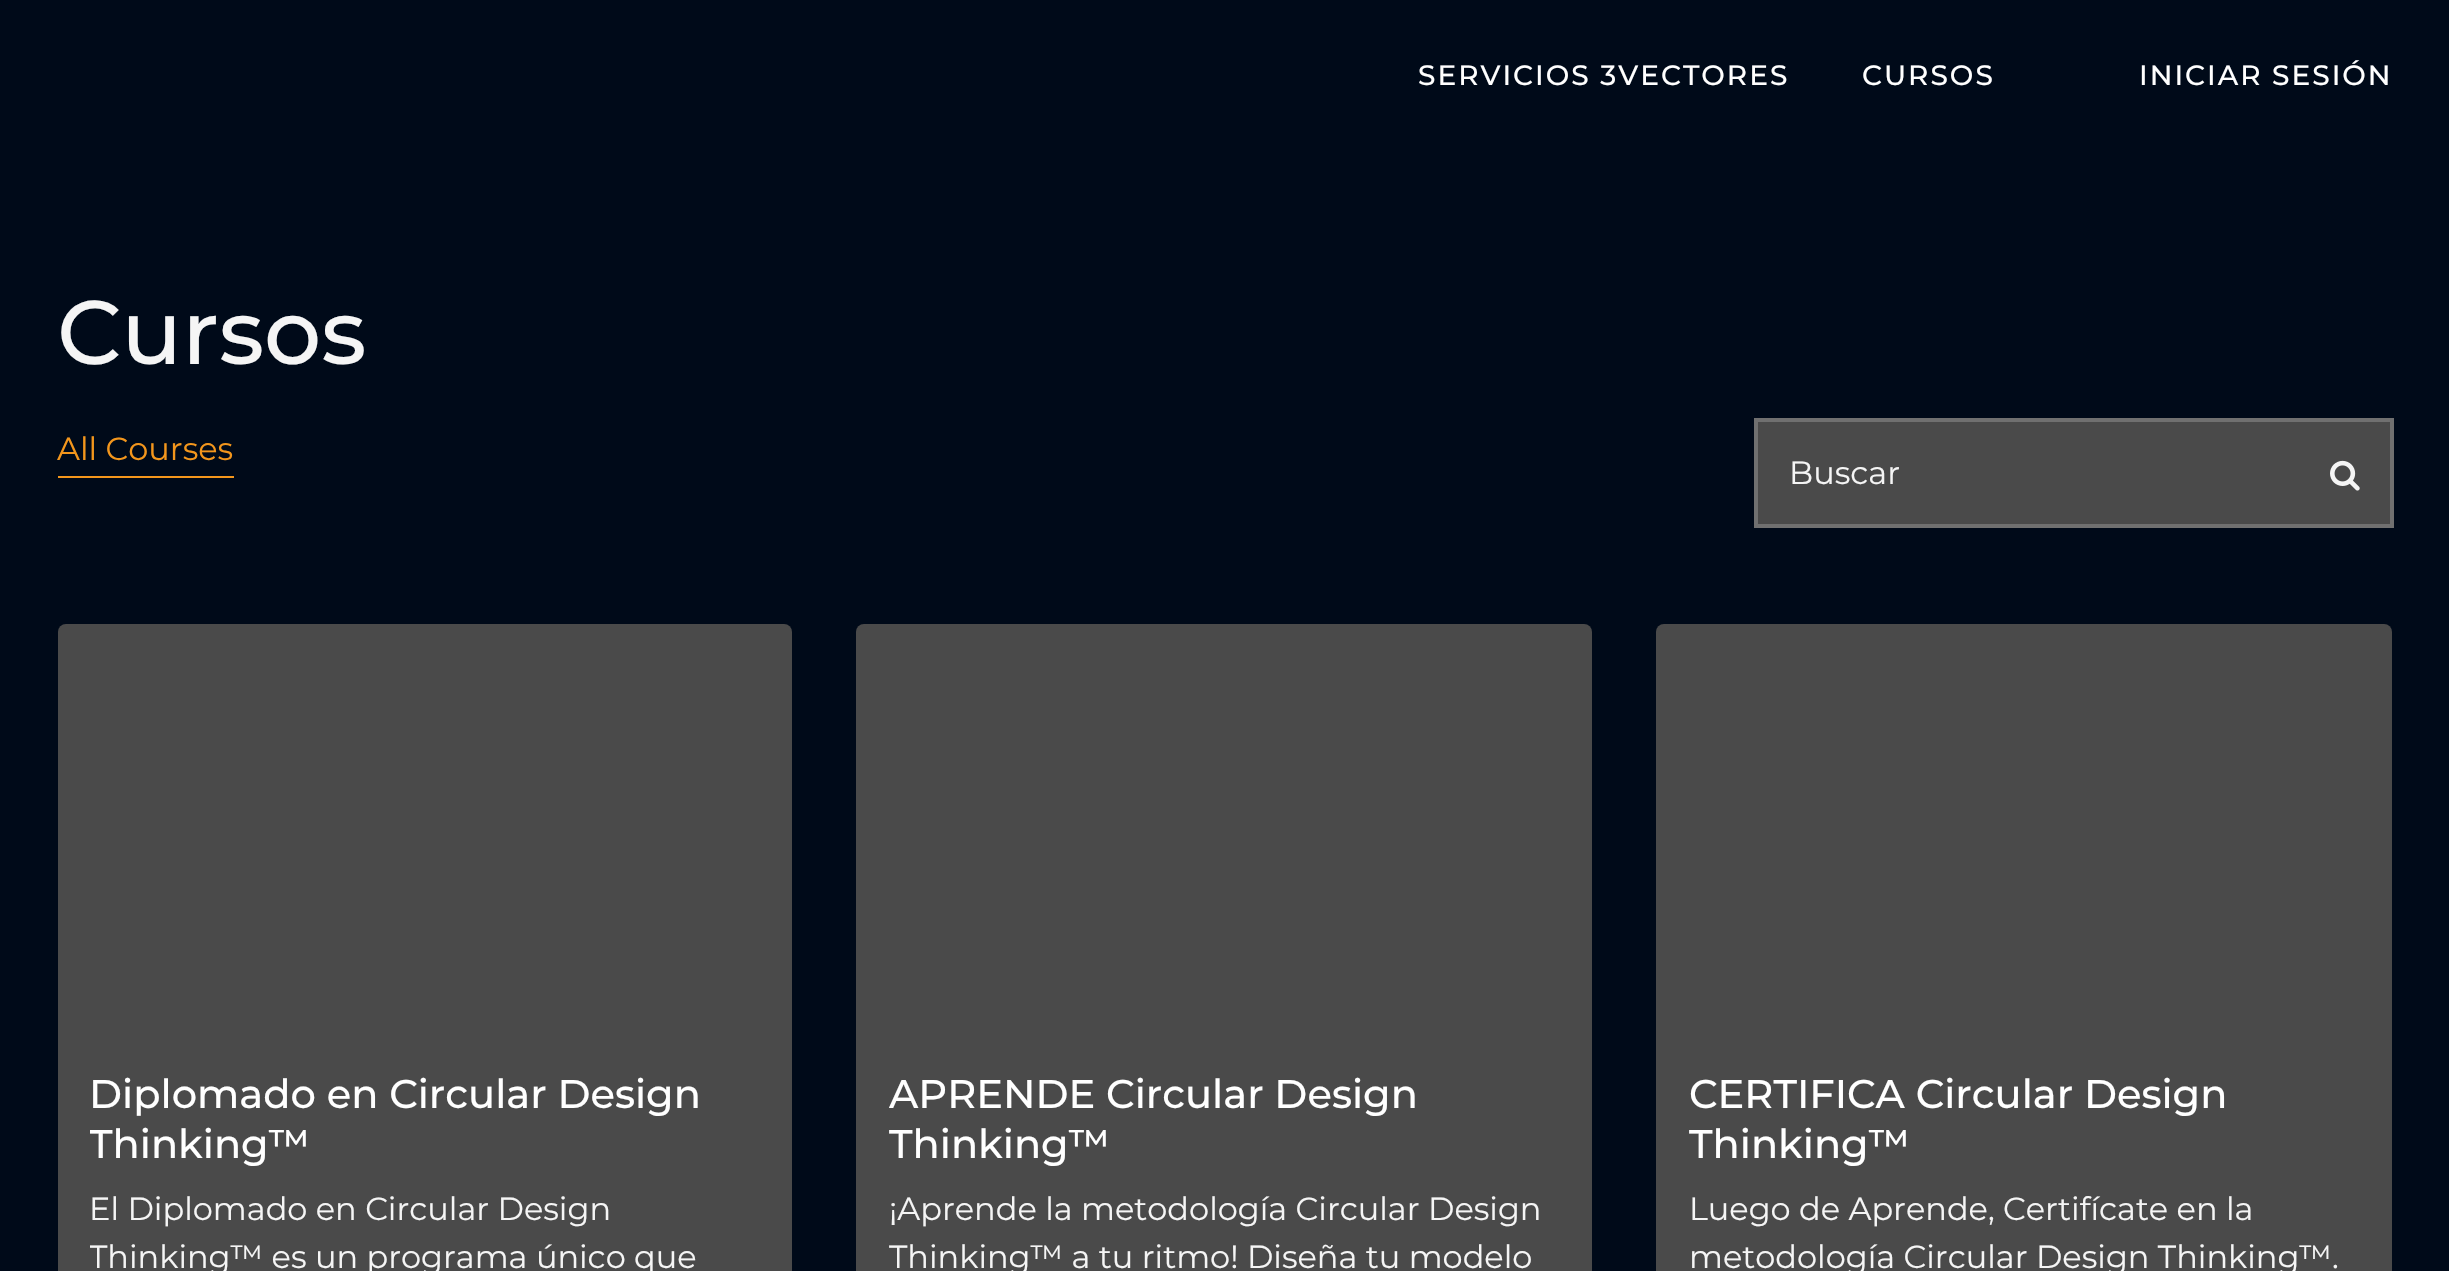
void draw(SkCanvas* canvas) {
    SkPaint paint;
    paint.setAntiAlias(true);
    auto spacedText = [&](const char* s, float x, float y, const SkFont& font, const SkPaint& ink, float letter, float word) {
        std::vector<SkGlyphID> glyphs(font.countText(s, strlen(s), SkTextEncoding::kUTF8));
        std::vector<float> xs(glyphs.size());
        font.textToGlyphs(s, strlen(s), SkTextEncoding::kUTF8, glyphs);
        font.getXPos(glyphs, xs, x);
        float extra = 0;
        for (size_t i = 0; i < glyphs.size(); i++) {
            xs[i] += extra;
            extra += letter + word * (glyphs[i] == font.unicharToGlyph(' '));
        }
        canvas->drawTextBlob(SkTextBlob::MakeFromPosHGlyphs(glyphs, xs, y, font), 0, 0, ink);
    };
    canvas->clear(0xFF000A19);
    SkFont font1(fontMgr->matchFamilyStyle("Montserrat", SkFontStyle(500, SkFontStyle::kNormal_Width, SkFontStyle::kUpright_Slant)), 28);
    font1.setSubpixel(true);
    paint.setColor(0xFFFFFFFF);
    spacedText("SERVICIOS 3VECTORES", 1418, 85, font1, paint, 2, 0);
    spacedText("CURSOS", 1862, 85, font1, paint, 2, 0);
    spacedText("INICIAR SESIÓN", 2139, 85, font1, paint, 2, 0);
    SkFont font2(fontMgr->matchFamilyStyle("Montserrat", SkFontStyle(500, SkFontStyle::kNormal_Width, SkFontStyle::kUpright_Slant)), 90);
    font2.setSubpixel(true);
    paint.setColor(0xFFF5F5F5);
    canvas->drawString("Cursos", 57, 364, font2, paint);
    SkFont font3(fontMgr->matchFamilyStyle("Montserrat", SkFontStyle::Normal()), 32);
    font3.setSubpixel(true);
    paint.setColor(0xFFF3961C);
    canvas->drawString("All Courses", 57, 460, font3, paint);
    canvas->drawRect(SkRect::MakeXYWH(58, 476, 176, 2), paint);
    paint.setColor(0xFF4A4A4A);
    canvas->drawRect(SkRect::MakeXYWH(1756, 420, 636, 106), paint);
    paint.setStyle(SkPaint::kStroke_Style);
    paint.setStrokeWidth(4);
    paint.setColor(0xFF707070);
    canvas->drawRect(SkRect::MakeXYWH(1756, 420, 636, 106), paint);
    paint.setStyle(SkPaint::kFill_Style);
    paint.setColor(0xFFF5F5F5);
    canvas->drawString("Buscar", 1789, 484, font3, paint);
    canvas->drawImageRect(SkImages::DeferredFromEncodedData(SkData::MakeFromFileName("img1.png")), SkRect::MakeXYWH(2330, 460, 30, 31), SkSamplingOptions());
    paint.setColor(0xFF4A4A4A);
    canvas->drawRoundRect(SkRect::MakeXYWH(58, 624, 734, 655), 8, 8, paint);
    SkFont font4(fontMgr->matchFamilyStyle("Montserrat", SkFontStyle(500, SkFontStyle::kNormal_Width, SkFontStyle::kUpright_Slant)), 40);
    font4.setSubpixel(true);
    paint.setColor(0xFFFFFFFF);
    canvas->drawString("Diplomado en Circular Design", 89, 1108, font4, paint);
    canvas->save();
    canvas->clipRect(SkRect::MakeXYWH(90, 1070, 670, 100));
    canvas->drawString("Thinking™", 89, 1158, font4, paint);
    canvas->restore();
    paint.setColor(0xFFF5F5F5);
    canvas->drawString("El Diplomado en Circular Design", 89, 1220, font3, paint);
    canvas->save();
    canvas->clipRect(SkRect::MakeXYWH(90, 1186, 670, 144));
    canvas->drawString("Thinking™ es un programa único que", 89, 1268, font3, paint);
    canvas->restore();
    paint.setColor(0xFF4A4A4A);
    canvas->drawRoundRect(SkRect::MakeXYWH(856, 624, 736, 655), 8, 8, paint);
    paint.setColor(0xFFFFFFFF);
    canvas->drawString("APRENDE Circular Design", 889, 1108, font4, paint);
    canvas->drawString("Thinking™", 889, 1158, font4, paint);
    paint.setColor(0xFFF5F5F5);
    canvas->drawString("¡Aprende la metodología Circular Design", 889, 1220, font3, paint);
    canvas->drawString("Thinking™ a tu ritmo! Diseña tu modelo", 889, 1268, font3, paint);
    paint.setColor(0xFF4A4A4A);
    canvas->drawRoundRect(SkRect::MakeXYWH(1656, 624, 736, 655), 8, 8, paint);
    paint.setColor(0xFFFFFFFF);
    canvas->drawString("CERTIFICA Circular Design", 1689, 1108, font4, paint);
    canvas->drawString("Thinking™", 1689, 1158, font4, paint);
    paint.setColor(0xFFF5F5F5);
    canvas->drawString("Luego de Aprende, Certifícate en la", 1689, 1220, font3, paint);
    canvas->drawString("metodología Circular Design Thinking™.", 1689, 1268, font3, paint);
}
